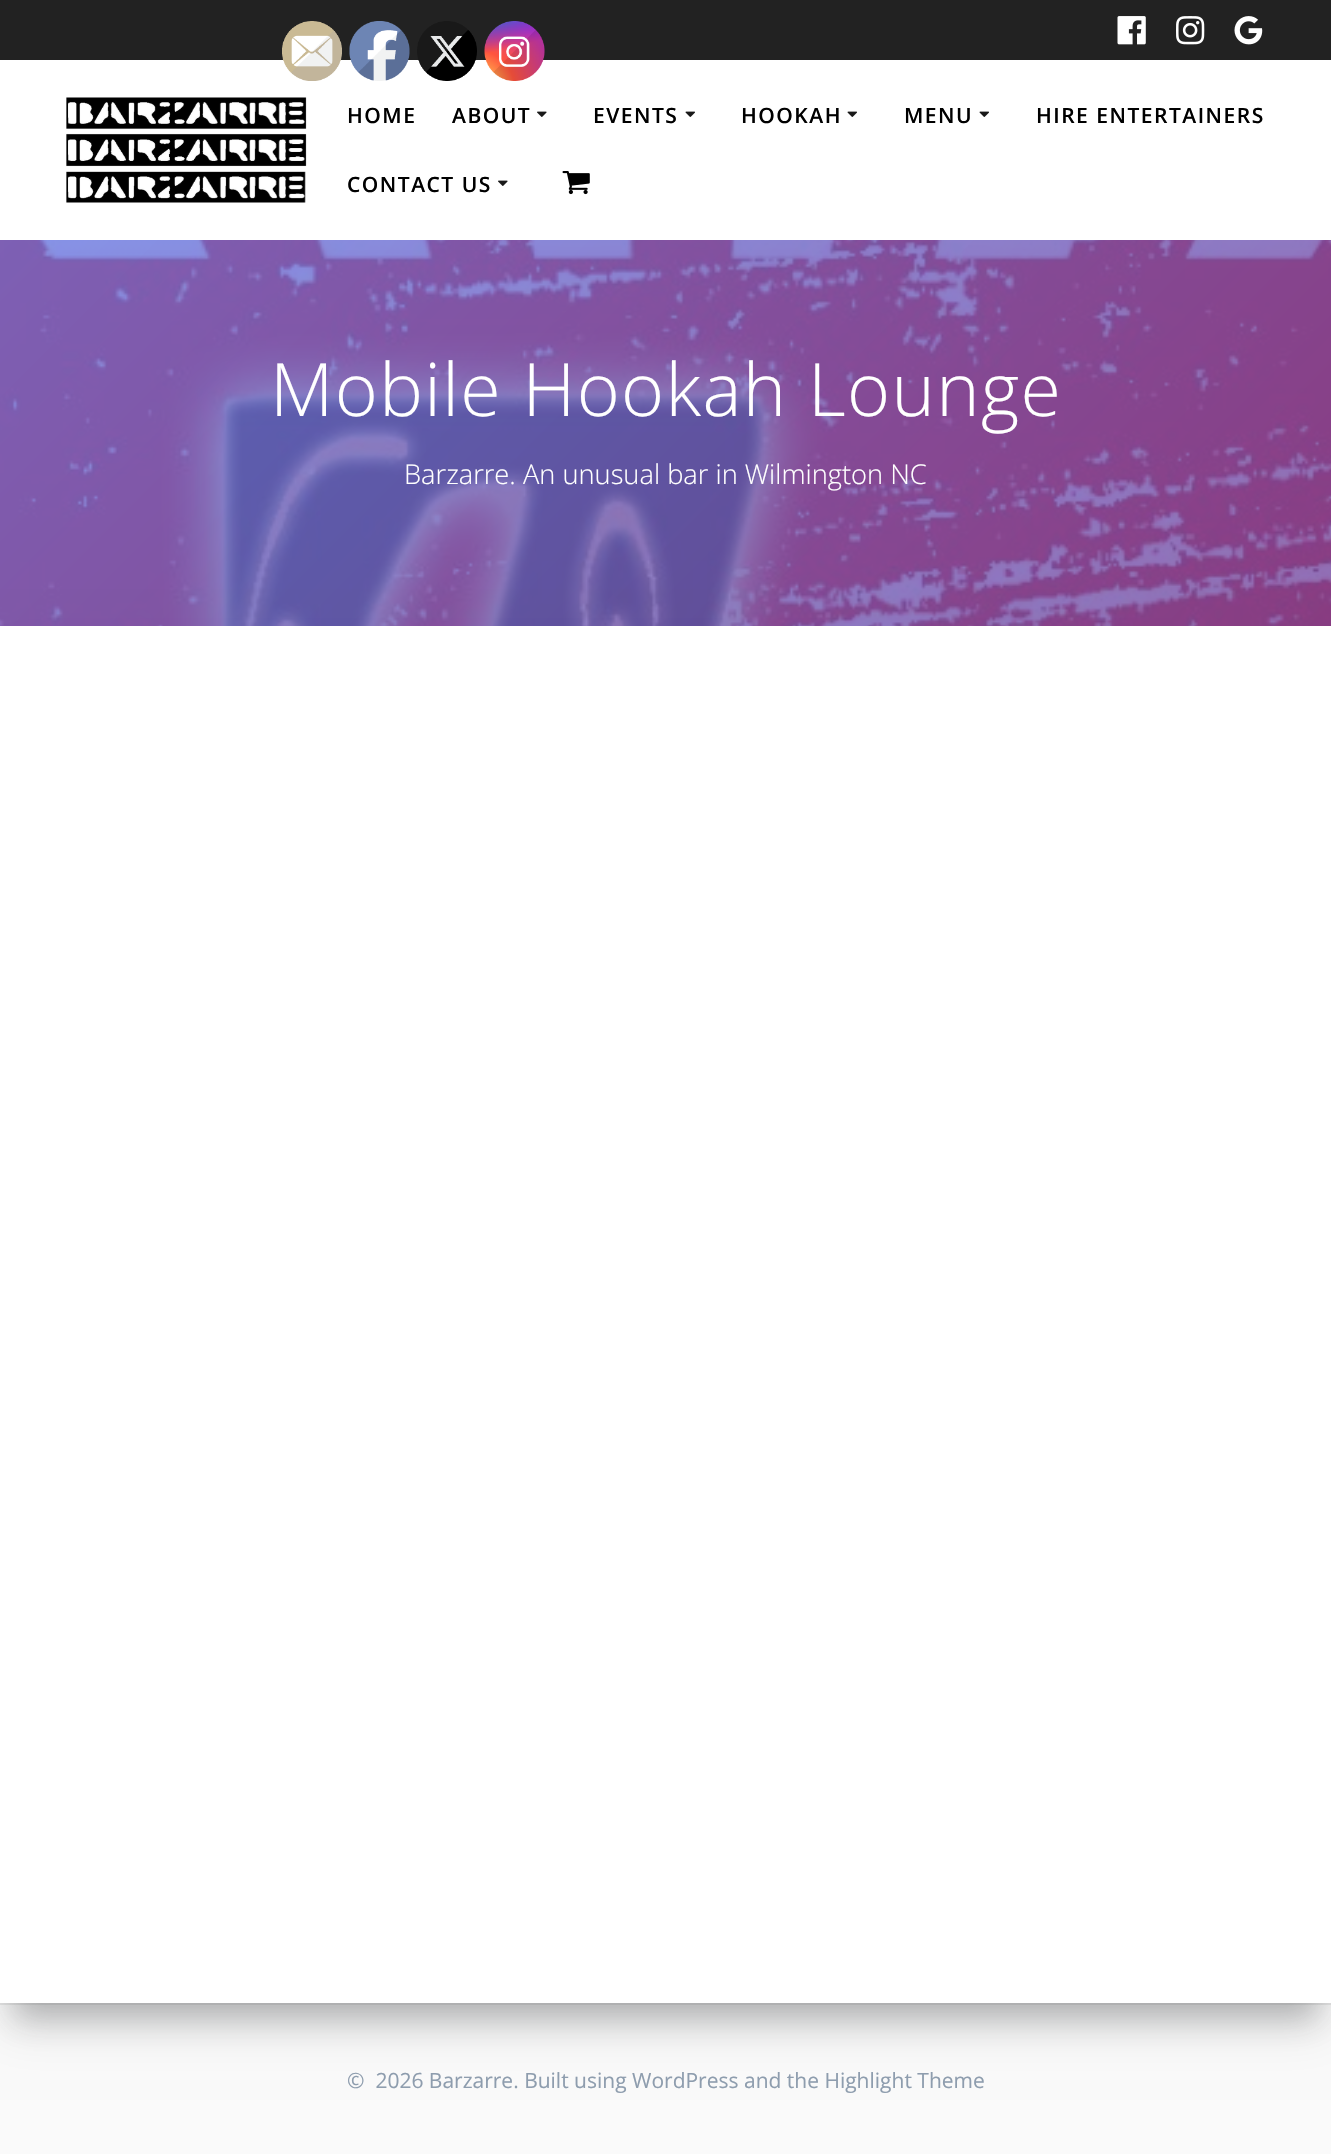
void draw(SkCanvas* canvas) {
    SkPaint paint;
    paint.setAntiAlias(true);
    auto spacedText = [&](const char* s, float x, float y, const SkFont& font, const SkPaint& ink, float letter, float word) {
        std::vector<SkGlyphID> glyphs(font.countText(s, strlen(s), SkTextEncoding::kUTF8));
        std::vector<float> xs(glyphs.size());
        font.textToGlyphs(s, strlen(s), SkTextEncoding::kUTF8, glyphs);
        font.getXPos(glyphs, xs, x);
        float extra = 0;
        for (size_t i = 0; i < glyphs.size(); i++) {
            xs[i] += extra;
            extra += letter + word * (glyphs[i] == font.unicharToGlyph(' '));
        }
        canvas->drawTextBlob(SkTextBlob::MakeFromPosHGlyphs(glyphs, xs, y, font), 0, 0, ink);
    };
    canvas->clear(0xFFFAFAFA);
    paint.setColor(0xFF222222);
    canvas->drawRect(SkRect::MakeXYWH(0, 0, 1331, 60), paint);
    paint.setColor(0xFFFFFFFF);
    canvas->drawRect(SkRect::MakeXYWH(0, 60, 1331, 180), paint);
    canvas->drawImageRect(SkImages::DeferredFromEncodedData(SkData::MakeFromFileName("img1.png")), SkRect::MakeXYWH(282, 21, 60, 60), SkSamplingOptions());
    canvas->drawImageRect(SkImages::DeferredFromEncodedData(SkData::MakeFromFileName("img2.png")), SkRect::MakeXYWH(349, 21, 61, 60), SkSamplingOptions());
    canvas->drawImageRect(SkImages::DeferredFromEncodedData(SkData::MakeFromFileName("img3.png")), SkRect::MakeXYWH(417, 21, 60, 60), SkSamplingOptions());
    canvas->drawImageRect(SkImages::DeferredFromEncodedData(SkData::MakeFromFileName("img4.png")), SkRect::MakeXYWH(484, 21, 61, 60), SkSamplingOptions());
    canvas->drawImageRect(SkImages::DeferredFromEncodedData(SkData::MakeFromFileName("img5.png")), SkRect::MakeXYWH(1117, 16, 29, 29), SkSamplingOptions());
    canvas->drawImageRect(SkImages::DeferredFromEncodedData(SkData::MakeFromFileName("img6.png")), SkRect::MakeXYWH(1176, 16, 29, 29), SkSamplingOptions());
    canvas->drawImageRect(SkImages::DeferredFromEncodedData(SkData::MakeFromFileName("img7.png")), SkRect::MakeXYWH(1234, 16, 29, 29), SkSamplingOptions());
    canvas->drawImageRect(SkImages::DeferredFromEncodedData(SkData::MakeFromFileName("img8.png")), SkRect::MakeXYWH(66, 97, 241, 106), SkSamplingOptions());
    SkFont font1(fontMgr->matchFamilyStyle("Open Sans", SkFontStyle(600, SkFontStyle::kNormal_Width, SkFontStyle::kUpright_Slant)), 21);
    font1.setSubpixel(true);
    paint.setColor(0xFF000000);
    spacedText("HOME", 347, 123, font1, paint, 1.5f, 0);
    spacedText("ABOUT", 452, 123, font1, paint, 1.5f, 0);
    canvas->drawImageRect(SkImages::DeferredFromEncodedData(SkData::MakeFromFileName("img9.png")), SkRect::MakeXYWH(537, 111, 10, 6), SkSamplingOptions());
    spacedText("EVENTS", 593, 123, font1, paint, 1.5f, 0);
    canvas->drawImageRect(SkImages::DeferredFromEncodedData(SkData::MakeFromFileName("img10.png")), SkRect::MakeXYWH(685, 111, 10, 6), SkSamplingOptions());
    spacedText("HOOKAH", 741, 123, font1, paint, 1.5f, 0);
    canvas->drawImageRect(SkImages::DeferredFromEncodedData(SkData::MakeFromFileName("img10.png")), SkRect::MakeXYWH(847, 111, 10, 6), SkSamplingOptions());
    spacedText("MENU", 904, 123, font1, paint, 1.5f, 0);
    canvas->drawImageRect(SkImages::DeferredFromEncodedData(SkData::MakeFromFileName("img10.png")), SkRect::MakeXYWH(979, 111, 10, 6), SkSamplingOptions());
    spacedText("HIRE ENTERTAINERS", 1036, 123, font1, paint, 1.5f, 0);
    spacedText("CONTACT US", 347, 192, font1, paint, 1.5f, 0);
    canvas->drawImageRect(SkImages::DeferredFromEncodedData(SkData::MakeFromFileName("img9.png")), SkRect::MakeXYWH(498, 180, 10, 6), SkSamplingOptions());
    canvas->drawImageRect(SkImages::DeferredFromEncodedData(SkData::MakeFromFileName("img11.png")), SkRect::MakeXYWH(562, 171, 28, 24), SkSamplingOptions());
    canvas->drawImageRect(SkImages::DeferredFromEncodedData(SkData::MakeFromFileName("img12.png")), SkRect::MakeXYWH(0, 240, 1331, 386), SkSamplingOptions());
    SkFont font2(fontMgr->matchFamilyStyle("Open Sans", SkFontStyle(300, SkFontStyle::kNormal_Width, SkFontStyle::kUpright_Slant)), 73.5f);
    font2.setSubpixel(true);
    paint.setColor(0xFFFFFFFF);
    spacedText("Mobile Hookah Lounge", 270, 416, font2, paint, 1.35f, 0);
    SkFont font3(fontMgr->matchFamilyStyle("Open Sans", SkFontStyle(300, SkFontStyle::kNormal_Width, SkFontStyle::kUpright_Slant)), 27.25f);
    font3.setSubpixel(true);
    canvas->drawString("Barzarre. An unusual bar in Wilmington NC", 404, 484, font3, paint);
    paint.setColor(0xFFE8E8E8);
    canvas->drawRect(SkRect::MakeXYWH(0, 2003, 1331, 2), paint);
    paint.setColor(0x14000000);
    paint.setMaskFilter(SkMaskFilter::MakeBlur(kNormal_SkBlurStyle, 22.5f));
    canvas->drawRect(SkRect::MakeXYWH(0, 656, 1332, 1377), paint);
    paint.setMaskFilter(nullptr);
    paint.setColor(0x4D313439);
    paint.setMaskFilter(SkMaskFilter::MakeBlur(kNormal_SkBlurStyle, 15));
    canvas->drawRect(SkRect::MakeXYWH(15, 671, 1302, 1347), paint);
    paint.setMaskFilter(nullptr);
    paint.setColor(0xFFFFFFFF);
    canvas->drawRect(SkRect::MakeXYWH(0, 626, 1331, 1377), paint);
    SkFont font4(fontMgr->matchFamilyStyle("Open Sans", SkFontStyle::Normal()), 21);
    font4.setSubpixel(true);
    paint.setColor(0xFF8E9DAE);
    canvas->drawString("©  2026 Barzarre. Built using WordPress and the Highlight Theme", 347, 2088, font4, paint);
}
